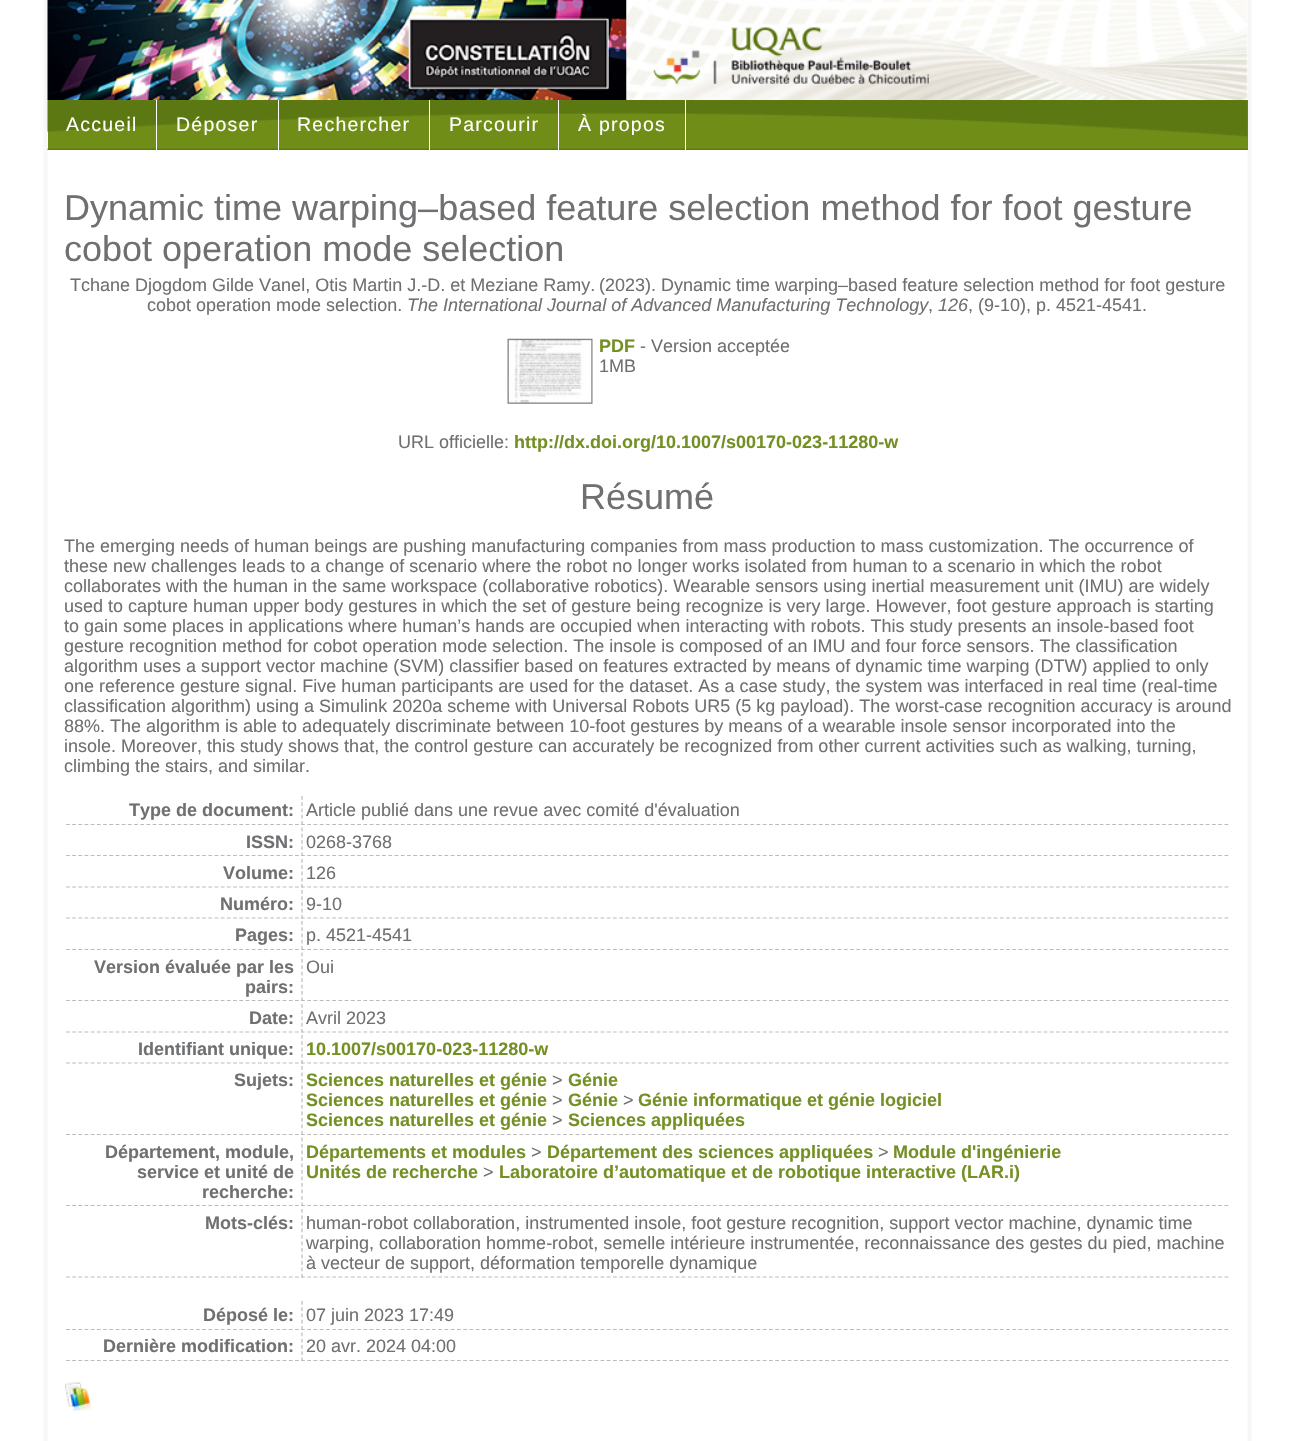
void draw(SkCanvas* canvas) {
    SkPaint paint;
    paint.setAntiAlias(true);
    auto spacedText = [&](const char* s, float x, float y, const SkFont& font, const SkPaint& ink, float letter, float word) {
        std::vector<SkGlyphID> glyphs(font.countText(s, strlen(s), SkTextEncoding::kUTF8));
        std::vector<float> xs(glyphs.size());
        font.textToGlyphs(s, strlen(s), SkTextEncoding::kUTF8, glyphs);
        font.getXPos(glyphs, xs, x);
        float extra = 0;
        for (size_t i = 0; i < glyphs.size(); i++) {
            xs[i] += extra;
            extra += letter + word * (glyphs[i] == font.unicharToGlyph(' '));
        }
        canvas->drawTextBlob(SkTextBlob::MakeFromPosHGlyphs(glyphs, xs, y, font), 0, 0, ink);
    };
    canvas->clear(0xFFFFFFFF);
    canvas->drawImageRect(SkImages::DeferredFromEncodedData(SkData::MakeFromFileName("img1.png")), SkRect::MakeXYWH(43, 0, 1209, 1441), SkSamplingOptions());
    canvas->drawImageRect(SkImages::DeferredFromEncodedData(SkData::MakeFromFileName("img2.png")), SkRect::MakeXYWH(626, 0, 622, 100), SkSamplingOptions());
    canvas->drawImageRect(SkImages::DeferredFromEncodedData(SkData::MakeFromFileName("img3.png")), SkRect::MakeXYWH(47, 0, 580, 100), SkSamplingOptions());
    canvas->drawImageRect(SkImages::DeferredFromEncodedData(SkData::MakeFromFileName("img4.png")), SkRect::MakeXYWH(653, 27, 276, 57), SkSamplingOptions());
    paint.setColor(0xFF708E17);
    canvas->drawRect(SkRect::MakeXYWH(48, 100, 1200, 50), paint);
    canvas->drawImageRect(SkImages::DeferredFromEncodedData(SkData::MakeFromFileName("img5.png")), SkRect::MakeXYWH(47, 100, 1201, 50), SkSamplingOptions());
    paint.setColor(0xFFFFFFFF);
    canvas->drawRect(SkRect::MakeXYWH(156, 100, 1, 50), paint);
    SkFont font1(fontMgr->matchFamilyStyle("Liberation Sans", SkFontStyle::Normal()), 19.5f);
    font1.setSubpixel(true);
    spacedText("Accueil", 66, 131, font1, paint, 1.25f, 0);
    canvas->drawRect(SkRect::MakeXYWH(278, 100, 1, 50), paint);
    spacedText("Déposer", 176, 131, font1, paint, 1.25f, 0);
    canvas->drawRect(SkRect::MakeXYWH(429, 100, 1, 50), paint);
    spacedText("Rechercher", 297, 131, font1, paint, 1.25f, 0);
    canvas->drawRect(SkRect::MakeXYWH(558, 100, 1, 50), paint);
    spacedText("Parcourir", 449, 131, font1, paint, 1.25f, 0);
    canvas->drawRect(SkRect::MakeXYWH(685, 100, 1, 50), paint);
    spacedText("À propos", 578, 131, font1, paint, 1.25f, 0);
    SkFont font2(fontMgr->matchFamilyStyle("Liberation Sans", SkFontStyle::Normal()), 36);
    font2.setSubpixel(true);
    paint.setColor(0xFF6F7072);
    canvas->drawString("Dynamic time warping–based feature selection method for foot gesture", 64, 220, font2, paint);
    canvas->drawString("cobot operation mode selection", 64, 261, font2, paint);
    SkFont font3(fontMgr->matchFamilyStyle("Liberation Sans", SkFontStyle::Normal()), 18);
    font3.setSubpixel(true);
    canvas->drawString("Tchane Djogdom Gilde Vanel, Otis Martin J.-D. et Meziane Ramy.", 70, 291, font3, paint);
    canvas->drawString("(2023). Dynamic time warping–based feature selection method for foot gesture", 599, 291, font3, paint);
    canvas->drawString("cobot operation mode selection.", 147, 311, font3, paint);
    SkFont font4(fontMgr->matchFamilyStyle("Liberation Sans", SkFontStyle::Italic()), 18);
    font4.setSubpixel(true);
    canvas->drawString("The International Journal of Advanced Manufacturing Technology", 407, 311, font4, paint);
    canvas->drawString(",", 928, 311, font3, paint);
    canvas->drawString("126", 938, 311, font4, paint);
    canvas->drawString(", (9-10), p. 4521-4541.", 968, 311, font3, paint);
    canvas->drawImageRect(SkImages::DeferredFromEncodedData(SkData::MakeFromFileName("img6.png")), SkRect::MakeXYWH(507, 338, 86, 66), SkSamplingOptions());
    SkFont font5(fontMgr->matchFamilyStyle("Liberation Sans", SkFontStyle::Bold()), 18);
    font5.setSubpixel(true);
    paint.setColor(0xFF749024);
    canvas->drawString("PDF", 599, 352, font5, paint);
    paint.setColor(0xFF6F7072);
    canvas->drawString("- Version acceptée", 640, 352, font3, paint);
    canvas->drawString("1MB", 599, 372, font3, paint);
    canvas->drawString("URL officielle:", 398, 448, font3, paint);
    paint.setColor(0xFF749024);
    canvas->drawString("http://dx.doi.org/10.1007/s00170-023-11280-w", 514, 448, font5, paint);
    paint.setColor(0xFF6F7072);
    canvas->drawString("Résumé", 580, 509, font2, paint);
    canvas->drawString("The emerging needs of human beings are pushing manufacturing companies from mass production to mass customization. The occurrence of", 64, 552, font3, paint);
    canvas->drawString("these new challenges leads to a change of scenario where the robot no longer works isolated from human to a scenario in which the robot", 64, 572, font3, paint);
    canvas->drawString("collaborates with the human in the same workspace (collaborative robotics). Wearable sensors using inertial measurement unit (IMU) are widely", 64, 592, font3, paint);
    canvas->drawString("used to capture human upper body gestures in which the set of gesture being recognize is very large. However, foot gesture approach is starting", 64, 612, font3, paint);
    canvas->drawString("to gain some places in applications where human’s hands are occupied when interacting with robots. This study presents an insole-based foot", 64, 632, font3, paint);
    canvas->drawString("gesture recognition method for cobot operation mode selection. The insole is composed of an IMU and four force sensors. The classification", 64, 652, font3, paint);
    canvas->drawString("algorithm uses a support vector machine (SVM) classifier based on features extracted by means of dynamic time warping (DTW) applied to only", 64, 672, font3, paint);
    canvas->drawString("one reference gesture signal. Five human participants are used for the dataset. As a case study, the system was interfaced in real time (real-time", 64, 692, font3, paint);
    canvas->drawString("classification algorithm) using a Simulink 2020a scheme with Universal Robots UR5 (5 kg payload). The worst-case recognition accuracy is around", 64, 712, font3, paint);
    canvas->drawString("88%. The algorithm is able to adequately discriminate between 10-foot gestures by means of a wearable insole sensor incorporated into the", 64, 732, font3, paint);
    canvas->drawString("insole. Moreover, this study shows that, the control gesture can accurately be recognized from other current activities such as walking, turning,", 64, 752, font3, paint);
    canvas->drawString("climbing the stairs, and similar.", 64, 772, font3, paint);
    paint.setStyle(SkPaint::kStroke_Style);
    paint.setStrokeWidth(1.2f);
    paint.setColor(0xFFBBBBBB);
    paint.setPathEffect(SkDashPathEffect::Make({{3.75f, 2.44f}}, 0));
    canvas->drawPath(SkPathBuilder().moveTo(66, 824.5f).lineTo(299, 824.5f).detach(), paint);
    paint.setPathEffect(nullptr);
    paint.setStyle(SkPaint::kFill_Style);
    paint.setColor(0xFF6F7072);
    canvas->drawString("Type de document:", 129, 816, font5, paint);
    paint.setStyle(SkPaint::kStroke_Style);
    paint.setColor(0xFFBBBBBB);
    paint.setPathEffect(SkDashPathEffect::Make({{3.75f, 2.49f}}, 0));
    canvas->drawPath(SkPathBuilder().moveTo(301, 824.5f).lineTo(1229, 824.5f).detach(), paint);
    paint.setPathEffect(nullptr);
    paint.setPathEffect(SkDashPathEffect::Make({{3.75f, 2.5f}}, 0));
    canvas->drawPath(SkPathBuilder().moveTo(302, 796).lineTo(302, 825).detach(), paint);
    paint.setPathEffect(nullptr);
    paint.setStyle(SkPaint::kFill_Style);
    paint.setColor(0xFF6F7072);
    canvas->drawString("Article publié dans une revue avec comité d'évaluation", 306, 816, font3, paint);
    paint.setStyle(SkPaint::kStroke_Style);
    paint.setColor(0xFFBBBBBB);
    paint.setPathEffect(SkDashPathEffect::Make({{3.75f, 2.44f}}, 0));
    canvas->drawPath(SkPathBuilder().moveTo(66, 855.5f).lineTo(299, 855.5f).detach(), paint);
    paint.setPathEffect(nullptr);
    paint.setStyle(SkPaint::kFill_Style);
    paint.setColor(0xFF6F7072);
    canvas->drawString("ISSN:", 246, 848, font5, paint);
    paint.setStyle(SkPaint::kStroke_Style);
    paint.setColor(0xFFBBBBBB);
    paint.setPathEffect(SkDashPathEffect::Make({{3.75f, 2.49f}}, 0));
    canvas->drawPath(SkPathBuilder().moveTo(301, 855.5f).lineTo(1229, 855.5f).detach(), paint);
    paint.setPathEffect(nullptr);
    paint.setPathEffect(SkDashPathEffect::Make({{3.75f, 2.5f}}, 0));
    canvas->drawPath(SkPathBuilder().moveTo(302, 827.5f).lineTo(302, 856).detach(), paint);
    paint.setPathEffect(nullptr);
    paint.setStyle(SkPaint::kFill_Style);
    paint.setColor(0xFF6F7072);
    canvas->drawString("0268-3768", 306, 848, font3, paint);
    paint.setStyle(SkPaint::kStroke_Style);
    paint.setColor(0xFFBBBBBB);
    paint.setPathEffect(SkDashPathEffect::Make({{3.75f, 2.44f}}, 0));
    canvas->drawPath(SkPathBuilder().moveTo(66, 887).lineTo(299, 887).detach(), paint);
    paint.setPathEffect(nullptr);
    paint.setStyle(SkPaint::kFill_Style);
    paint.setColor(0xFF6F7072);
    canvas->drawString("Volume:", 223, 879, font5, paint);
    paint.setStyle(SkPaint::kStroke_Style);
    paint.setColor(0xFFBBBBBB);
    paint.setPathEffect(SkDashPathEffect::Make({{3.75f, 2.49f}}, 0));
    canvas->drawPath(SkPathBuilder().moveTo(301, 887).lineTo(1229, 887).detach(), paint);
    paint.setPathEffect(nullptr);
    paint.setPathEffect(SkDashPathEffect::Make({{3.75f, 2.5f}}, 0));
    canvas->drawPath(SkPathBuilder().moveTo(302, 859).lineTo(302, 887.5f).detach(), paint);
    paint.setPathEffect(nullptr);
    paint.setStyle(SkPaint::kFill_Style);
    paint.setColor(0xFF6F7072);
    canvas->drawString("126", 306, 879, font3, paint);
    paint.setStyle(SkPaint::kStroke_Style);
    paint.setColor(0xFFBBBBBB);
    paint.setPathEffect(SkDashPathEffect::Make({{3.75f, 2.44f}}, 0));
    canvas->drawPath(SkPathBuilder().moveTo(66, 918).lineTo(299, 918).detach(), paint);
    paint.setPathEffect(nullptr);
    paint.setStyle(SkPaint::kFill_Style);
    paint.setColor(0xFF6F7072);
    canvas->drawString("Numéro:", 220, 910, font5, paint);
    paint.setStyle(SkPaint::kStroke_Style);
    paint.setColor(0xFFBBBBBB);
    paint.setPathEffect(SkDashPathEffect::Make({{3.75f, 2.49f}}, 0));
    canvas->drawPath(SkPathBuilder().moveTo(301, 918).lineTo(1229, 918).detach(), paint);
    paint.setPathEffect(nullptr);
    paint.setPathEffect(SkDashPathEffect::Make({{3.75f, 2.5f}}, 0));
    canvas->drawPath(SkPathBuilder().moveTo(302, 890).lineTo(302, 919).detach(), paint);
    paint.setPathEffect(nullptr);
    paint.setStyle(SkPaint::kFill_Style);
    paint.setColor(0xFF6F7072);
    canvas->drawString("9-10", 306, 910, font3, paint);
    paint.setStyle(SkPaint::kStroke_Style);
    paint.setColor(0xFFBBBBBB);
    paint.setPathEffect(SkDashPathEffect::Make({{3.75f, 2.44f}}, 0));
    canvas->drawPath(SkPathBuilder().moveTo(66, 949.5f).lineTo(299, 949.5f).detach(), paint);
    paint.setPathEffect(nullptr);
    paint.setStyle(SkPaint::kFill_Style);
    paint.setColor(0xFF6F7072);
    canvas->drawString("Pages:", 235, 941, font5, paint);
    paint.setStyle(SkPaint::kStroke_Style);
    paint.setColor(0xFFBBBBBB);
    paint.setPathEffect(SkDashPathEffect::Make({{3.75f, 2.49f}}, 0));
    canvas->drawPath(SkPathBuilder().moveTo(301, 949.5f).lineTo(1229, 949.5f).detach(), paint);
    paint.setPathEffect(nullptr);
    paint.setPathEffect(SkDashPathEffect::Make({{3.75f, 2.5f}}, 0));
    canvas->drawPath(SkPathBuilder().moveTo(302, 921).lineTo(302, 950).detach(), paint);
    paint.setPathEffect(nullptr);
    paint.setStyle(SkPaint::kFill_Style);
    paint.setColor(0xFF6F7072);
    canvas->drawString("p. 4521-4541", 306, 941, font3, paint);
    paint.setStyle(SkPaint::kStroke_Style);
    paint.setColor(0xFFBBBBBB);
    paint.setPathEffect(SkDashPathEffect::Make({{3.75f, 2.44f}}, 0));
    canvas->drawPath(SkPathBuilder().moveTo(66, 1000.5f).lineTo(299, 1000.5f).detach(), paint);
    paint.setPathEffect(nullptr);
    paint.setStyle(SkPaint::kFill_Style);
    paint.setColor(0xFF6F7072);
    canvas->drawString("Version évaluée par les", 94, 973, font5, paint);
    canvas->drawString("pairs:", 245, 993, font5, paint);
    paint.setStyle(SkPaint::kStroke_Style);
    paint.setColor(0xFFBBBBBB);
    paint.setPathEffect(SkDashPathEffect::Make({{3.75f, 2.49f}}, 0));
    canvas->drawPath(SkPathBuilder().moveTo(301, 1000.5f).lineTo(1229, 1000.5f).detach(), paint);
    paint.setPathEffect(nullptr);
    paint.setPathEffect(SkDashPathEffect::Make({{3.75f, 2.68f}}, 0));
    canvas->drawPath(SkPathBuilder().moveTo(302, 952.5f).lineTo(302, 1001).detach(), paint);
    paint.setPathEffect(nullptr);
    paint.setStyle(SkPaint::kFill_Style);
    paint.setColor(0xFF6F7072);
    canvas->drawString("Oui", 306, 973, font3, paint);
    paint.setStyle(SkPaint::kStroke_Style);
    paint.setColor(0xFFBBBBBB);
    paint.setPathEffect(SkDashPathEffect::Make({{3.75f, 2.44f}}, 0));
    canvas->drawPath(SkPathBuilder().moveTo(66, 1032).lineTo(299, 1032).detach(), paint);
    paint.setPathEffect(nullptr);
    paint.setStyle(SkPaint::kFill_Style);
    paint.setColor(0xFF6F7072);
    canvas->drawString("Date:", 249, 1024, font5, paint);
    paint.setStyle(SkPaint::kStroke_Style);
    paint.setColor(0xFFBBBBBB);
    paint.setPathEffect(SkDashPathEffect::Make({{3.75f, 2.49f}}, 0));
    canvas->drawPath(SkPathBuilder().moveTo(301, 1032).lineTo(1229, 1032).detach(), paint);
    paint.setPathEffect(nullptr);
    paint.setPathEffect(SkDashPathEffect::Make({{3.75f, 2.5f}}, 0));
    canvas->drawPath(SkPathBuilder().moveTo(302, 1004).lineTo(302, 1032.5f).detach(), paint);
    paint.setPathEffect(nullptr);
    paint.setStyle(SkPaint::kFill_Style);
    paint.setColor(0xFF6F7072);
    canvas->drawString("Avril 2023", 306, 1024, font3, paint);
    paint.setStyle(SkPaint::kStroke_Style);
    paint.setColor(0xFFBBBBBB);
    paint.setPathEffect(SkDashPathEffect::Make({{3.75f, 2.44f}}, 0));
    canvas->drawPath(SkPathBuilder().moveTo(66, 1063).lineTo(299, 1063).detach(), paint);
    paint.setPathEffect(nullptr);
    paint.setStyle(SkPaint::kFill_Style);
    paint.setColor(0xFF6F7072);
    canvas->drawString("Identifiant unique:", 138, 1055, font5, paint);
    paint.setStyle(SkPaint::kStroke_Style);
    paint.setColor(0xFFBBBBBB);
    paint.setPathEffect(SkDashPathEffect::Make({{3.75f, 2.49f}}, 0));
    canvas->drawPath(SkPathBuilder().moveTo(301, 1063).lineTo(1229, 1063).detach(), paint);
    paint.setPathEffect(nullptr);
    paint.setPathEffect(SkDashPathEffect::Make({{3.75f, 2.5f}}, 0));
    canvas->drawPath(SkPathBuilder().moveTo(302, 1035).lineTo(302, 1064).detach(), paint);
    paint.setPathEffect(nullptr);
    paint.setStyle(SkPaint::kFill_Style);
    paint.setColor(0xFF749024);
    canvas->drawString("10.1007/s00170-023-11280-w", 306, 1055, font5, paint);
    paint.setStyle(SkPaint::kStroke_Style);
    paint.setColor(0xFFBBBBBB);
    paint.setPathEffect(SkDashPathEffect::Make({{3.75f, 2.44f}}, 0));
    canvas->drawPath(SkPathBuilder().moveTo(66, 1134.5f).lineTo(299, 1134.5f).detach(), paint);
    paint.setPathEffect(nullptr);
    paint.setStyle(SkPaint::kFill_Style);
    paint.setColor(0xFF6F7072);
    canvas->drawString("Sujets:", 234, 1086, font5, paint);
    paint.setStyle(SkPaint::kStroke_Style);
    paint.setColor(0xFFBBBBBB);
    paint.setPathEffect(SkDashPathEffect::Make({{3.75f, 2.49f}}, 0));
    canvas->drawPath(SkPathBuilder().moveTo(301, 1134.5f).lineTo(1229, 1134.5f).detach(), paint);
    paint.setPathEffect(nullptr);
    paint.setPathEffect(SkDashPathEffect::Make({{3.75f, 2.75f}}, 0));
    canvas->drawPath(SkPathBuilder().moveTo(302, 1066).lineTo(302, 1135).detach(), paint);
    paint.setPathEffect(nullptr);
    paint.setStyle(SkPaint::kFill_Style);
    paint.setColor(0xFF749024);
    canvas->drawString("Sciences naturelles et génie", 306, 1086, font5, paint);
    paint.setColor(0xFF6F7072);
    canvas->drawString(">", 552, 1086, font3, paint);
    paint.setColor(0xFF749024);
    canvas->drawString("Génie", 568, 1086, font5, paint);
    canvas->drawString("Sciences naturelles et génie", 306, 1106, font5, paint);
    paint.setColor(0xFF6F7072);
    canvas->drawString(">", 552, 1106, font3, paint);
    paint.setColor(0xFF749024);
    canvas->drawString("Génie", 568, 1106, font5, paint);
    paint.setColor(0xFF6F7072);
    canvas->drawString(">", 623, 1106, font3, paint);
    paint.setColor(0xFF749024);
    canvas->drawString("Génie informatique et génie logiciel", 638, 1106, font5, paint);
    canvas->drawString("Sciences naturelles et génie", 306, 1126, font5, paint);
    paint.setColor(0xFF6F7072);
    canvas->drawString(">", 552, 1126, font3, paint);
    paint.setColor(0xFF749024);
    canvas->drawString("Sciences appliquées", 568, 1126, font5, paint);
    paint.setStyle(SkPaint::kStroke_Style);
    paint.setColor(0xFFBBBBBB);
    paint.setPathEffect(SkDashPathEffect::Make({{3.75f, 2.44f}}, 0));
    canvas->drawPath(SkPathBuilder().moveTo(66, 1205.5f).lineTo(299, 1205.5f).detach(), paint);
    paint.setPathEffect(nullptr);
    paint.setStyle(SkPaint::kFill_Style);
    paint.setColor(0xFF6F7072);
    canvas->drawString("Département, module,", 105, 1158, font5, paint);
    canvas->drawString("service et unité de", 137, 1178, font5, paint);
    canvas->drawString("recherche:", 202, 1198, font5, paint);
    paint.setStyle(SkPaint::kStroke_Style);
    paint.setColor(0xFFBBBBBB);
    paint.setPathEffect(SkDashPathEffect::Make({{3.75f, 2.49f}}, 0));
    canvas->drawPath(SkPathBuilder().moveTo(301, 1205.5f).lineTo(1229, 1205.5f).detach(), paint);
    paint.setPathEffect(nullptr);
    paint.setPathEffect(SkDashPathEffect::Make({{3.75f, 2.75f}}, 0));
    canvas->drawPath(SkPathBuilder().moveTo(302, 1137.5f).lineTo(302, 1206).detach(), paint);
    paint.setPathEffect(nullptr);
    paint.setStyle(SkPaint::kFill_Style);
    paint.setColor(0xFF749024);
    canvas->drawString("Départements et modules", 306, 1158, font5, paint);
    paint.setColor(0xFF6F7072);
    canvas->drawString(">", 531, 1158, font3, paint);
    paint.setColor(0xFF749024);
    canvas->drawString("Département des sciences appliquées", 547, 1158, font5, paint);
    paint.setColor(0xFF6F7072);
    canvas->drawString(">", 878, 1158, font3, paint);
    paint.setColor(0xFF749024);
    canvas->drawString("Module d'ingénierie", 893, 1158, font5, paint);
    canvas->drawString("Unités de recherche", 306, 1178, font5, paint);
    paint.setColor(0xFF6F7072);
    canvas->drawString(">", 483, 1178, font3, paint);
    paint.setColor(0xFF749024);
    canvas->drawString("Laboratoire d’automatique et de robotique interactive (LAR.i)", 499, 1178, font5, paint);
    paint.setStyle(SkPaint::kStroke_Style);
    paint.setColor(0xFFBBBBBB);
    paint.setPathEffect(SkDashPathEffect::Make({{3.75f, 2.44f}}, 0));
    canvas->drawPath(SkPathBuilder().moveTo(66, 1277).lineTo(299, 1277).detach(), paint);
    paint.setPathEffect(nullptr);
    paint.setStyle(SkPaint::kFill_Style);
    paint.setColor(0xFF6F7072);
    canvas->drawString("Mots-clés:", 205, 1229, font5, paint);
    paint.setStyle(SkPaint::kStroke_Style);
    paint.setColor(0xFFBBBBBB);
    paint.setPathEffect(SkDashPathEffect::Make({{3.75f, 2.49f}}, 0));
    canvas->drawPath(SkPathBuilder().moveTo(301, 1277).lineTo(1229, 1277).detach(), paint);
    paint.setPathEffect(nullptr);
    paint.setPathEffect(SkDashPathEffect::Make({{3.75f, 2.75f}}, 0));
    canvas->drawPath(SkPathBuilder().moveTo(302, 1209).lineTo(302, 1277.5f).detach(), paint);
    paint.setPathEffect(nullptr);
    paint.setStyle(SkPaint::kFill_Style);
    paint.setColor(0xFF6F7072);
    canvas->drawString("human-robot collaboration, instrumented insole, foot gesture recognition, support vector machine, dynamic time", 306, 1229, font3, paint);
    canvas->drawString("warping, collaboration homme-robot, semelle intérieure instrumentée, reconnaissance des gestes du pied, machine", 306, 1249, font3, paint);
    canvas->drawString("à vecteur de support, déformation temporelle dynamique", 306, 1269, font3, paint);
    paint.setStyle(SkPaint::kStroke_Style);
    paint.setColor(0xFFBBBBBB);
    paint.setPathEffect(SkDashPathEffect::Make({{3.75f, 2.44f}}, 0));
    canvas->drawPath(SkPathBuilder().moveTo(66, 1329.5f).lineTo(299, 1329.5f).detach(), paint);
    paint.setPathEffect(nullptr);
    paint.setStyle(SkPaint::kFill_Style);
    paint.setColor(0xFF6F7072);
    canvas->drawString("Déposé le:", 203, 1321, font5, paint);
    paint.setStyle(SkPaint::kStroke_Style);
    paint.setColor(0xFFBBBBBB);
    paint.setPathEffect(SkDashPathEffect::Make({{3.75f, 2.49f}}, 0));
    canvas->drawPath(SkPathBuilder().moveTo(301, 1329.5f).lineTo(1229, 1329.5f).detach(), paint);
    paint.setPathEffect(nullptr);
    paint.setPathEffect(SkDashPathEffect::Make({{3.75f, 2.5f}}, 0));
    canvas->drawPath(SkPathBuilder().moveTo(302, 1301).lineTo(302, 1330).detach(), paint);
    paint.setPathEffect(nullptr);
    paint.setStyle(SkPaint::kFill_Style);
    paint.setColor(0xFF6F7072);
    canvas->drawString("07 juin 2023 17:49", 306, 1321, font3, paint);
    paint.setStyle(SkPaint::kStroke_Style);
    paint.setColor(0xFFBBBBBB);
    paint.setPathEffect(SkDashPathEffect::Make({{3.75f, 2.44f}}, 0));
    canvas->drawPath(SkPathBuilder().moveTo(66, 1360.5f).lineTo(299, 1360.5f).detach(), paint);
    paint.setPathEffect(nullptr);
    paint.setStyle(SkPaint::kFill_Style);
    paint.setColor(0xFF6F7072);
    canvas->drawString("Dernière modification:", 103, 1352, font5, paint);
    paint.setStyle(SkPaint::kStroke_Style);
    paint.setColor(0xFFBBBBBB);
    paint.setPathEffect(SkDashPathEffect::Make({{3.75f, 2.49f}}, 0));
    canvas->drawPath(SkPathBuilder().moveTo(301, 1360.5f).lineTo(1229, 1360.5f).detach(), paint);
    paint.setPathEffect(nullptr);
    paint.setPathEffect(SkDashPathEffect::Make({{3.75f, 2.5f}}, 0));
    canvas->drawPath(SkPathBuilder().moveTo(302, 1332.5f).lineTo(302, 1361).detach(), paint);
    paint.setPathEffect(nullptr);
    paint.setStyle(SkPaint::kFill_Style);
    paint.setColor(0xFF6F7072);
    canvas->drawString("20 avr. 2024 04:00", 306, 1352, font3, paint);
    canvas->drawImageRect(SkImages::DeferredFromEncodedData(SkData::MakeFromFileName("img7.png")), SkRect::MakeXYWH(65, 1382, 27, 29), SkSamplingOptions());
}
